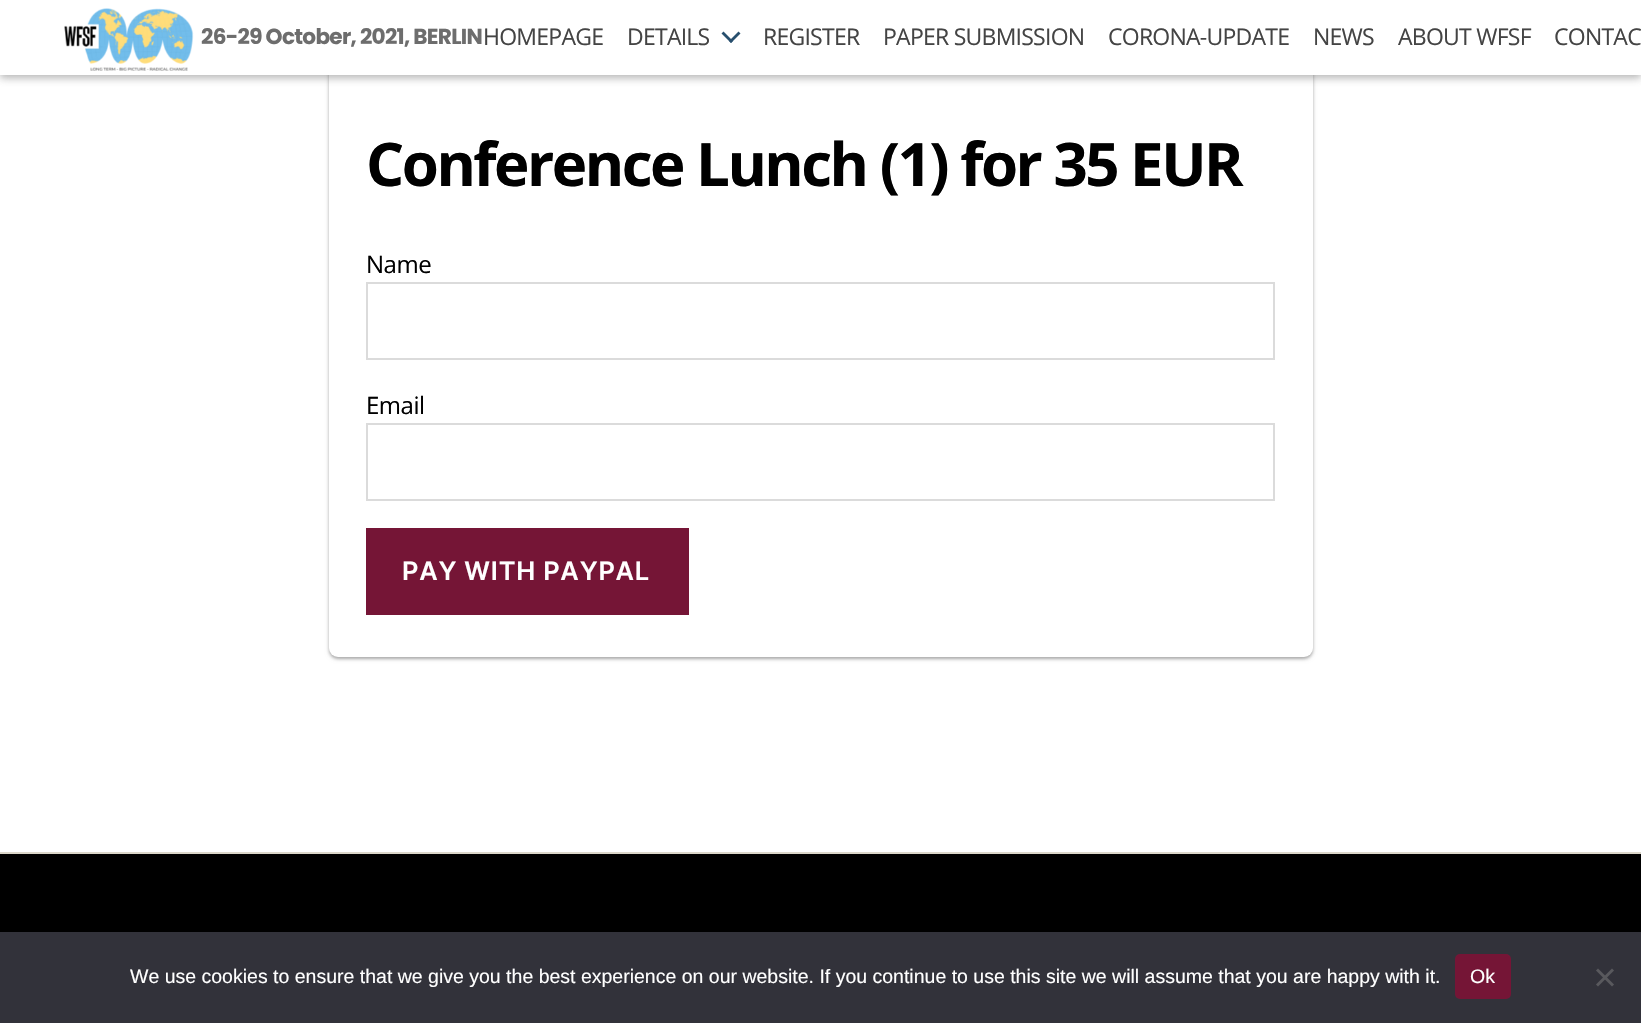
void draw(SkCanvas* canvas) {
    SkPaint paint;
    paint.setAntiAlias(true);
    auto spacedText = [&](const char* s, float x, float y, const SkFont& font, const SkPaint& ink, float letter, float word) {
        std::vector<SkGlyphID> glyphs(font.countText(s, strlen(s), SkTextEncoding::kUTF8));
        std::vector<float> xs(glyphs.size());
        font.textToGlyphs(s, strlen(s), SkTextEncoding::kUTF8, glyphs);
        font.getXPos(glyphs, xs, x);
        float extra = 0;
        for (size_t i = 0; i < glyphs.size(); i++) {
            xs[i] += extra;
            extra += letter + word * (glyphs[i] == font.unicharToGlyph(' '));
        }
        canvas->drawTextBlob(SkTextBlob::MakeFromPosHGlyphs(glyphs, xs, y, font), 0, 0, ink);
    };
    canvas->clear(0xFFFFFFFF);
    paint.setColor(0x3D000000);
    paint.setMaskFilter(SkMaskFilter::MakeBlur(kNormal_SkBlurStyle, 1.5f));
    canvas->drawRoundRect(SkRect::MakeXYWH(329, -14, 984, 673), 9, 9, paint);
    paint.setMaskFilter(nullptr);
    paint.setColor(0x1F000000);
    paint.setMaskFilter(SkMaskFilter::MakeBlur(kNormal_SkBlurStyle, 2));
    canvas->drawRoundRect(SkRect::MakeXYWH(329, -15, 984, 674), 9, 9, paint);
    paint.setMaskFilter(nullptr);
    paint.setColor(0xFFFFFFFF);
    canvas->drawRoundRect(SkRect::MakeXYWH(329, -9, 984, 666), 9, 9, paint);
    paint.setColor(0x66444444);
    paint.setMaskFilter(SkMaskFilter::MakeBlur(kNormal_SkBlurStyle, 4));
    canvas->drawRect(SkRect::MakeXYWH(0, 3, 1641, 75), paint);
    paint.setMaskFilter(nullptr);
    paint.setColor(0xFFFFFFFF);
    canvas->drawRect(SkRect::MakeXYWH(0, 0, 1641, 75), paint);
    canvas->drawImageRect(SkImages::DeferredFromEncodedData(SkData::MakeFromFileName("img1.png")), SkRect::MakeXYWH(64, 8, 130, 63), SkSamplingOptions());
    SkFont font1(fontMgr->matchFamilyStyle("Poppins", SkFontStyle::Bold()), 21.6f);
    font1.setSubpixel(true);
    paint.setColor(0xFF6D6D6D);
    spacedText("26-29 October, 2021, BERLIN", 201, 44, font1, paint, -0.7f, 0);
    SkFont font2(fontMgr->matchFamilyStyle("Open Sans", SkFontStyle::Normal()), 23);
    font2.setSubpixel(true);
    paint.setColor(0xFF444444);
    spacedText("HOMEPAGE", 483, 45, font2, paint, -0.75f, 0);
    spacedText("DETAILS", 627, 45, font2, paint, -0.75f, 0);
    paint.setColor(0xFF284F6E);
    canvas->drawPath(SkPathBuilder().moveTo(721.5f, 33.5f).lineTo(723.5f, 31.5f).lineTo(733, 41).lineTo(731, 43).close().detach(), paint);
    canvas->drawPath(SkPathBuilder().moveTo(729, 41).lineTo(738.5f, 31.5f).lineTo(740.5f, 33.5f).lineTo(731, 43).close().detach(), paint);
    paint.setColor(0xFF444444);
    spacedText("REGISTER", 763, 45, font2, paint, -0.75f, 0);
    spacedText("PAPER SUBMISSION", 883, 45, font2, paint, -0.75f, 0);
    spacedText("CORONA-UPDATE", 1108, 45, font2, paint, -0.75f, 0);
    spacedText("NEWS", 1313, 45, font2, paint, -0.75f, 0);
    spacedText("ABOUT WFSF", 1398, 45, font2, paint, -0.75f, 0);
    spacedText("CONTAC", 1554, 45, font2, paint, -0.75f, 0);
    SkFont font3(fontMgr->matchFamilyStyle("Open Sans", SkFontStyle::Bold()), 60);
    font3.setSubpixel(true);
    paint.setColor(0xFF000000);
    spacedText("Conference Lunch (1) for 35 EUR", 366, 186, font3, paint, -2.5f, 0);
    SkFont font4(fontMgr->matchFamilyStyle("Open Sans", SkFontStyle::Normal()), 24);
    font4.setSubpixel(true);
    spacedText("Name", 366, 273, font4, paint, -0.5f, 0);
    paint.setStyle(SkPaint::kStroke_Style);
    paint.setStrokeWidth(2);
    paint.setColor(0xFFDBDBDB);
    canvas->drawRect(SkRect::MakeXYWH(367, 283, 907, 76), paint);
    paint.setStyle(SkPaint::kFill_Style);
    paint.setColor(0xFF000000);
    spacedText("Email", 366, 414, font4, paint, -0.5f, 0);
    paint.setStyle(SkPaint::kStroke_Style);
    paint.setColor(0xFFDBDBDB);
    canvas->drawRect(SkRect::MakeXYWH(367, 424, 907, 76), paint);
    paint.setStyle(SkPaint::kFill_Style);
    paint.setColor(0xFF751536);
    canvas->drawRect(SkRect::MakeXYWH(366, 528, 323, 87), paint);
    SkFont font5(fontMgr->matchFamilyStyle("Inter", SkFontStyle(600, SkFontStyle::kNormal_Width, SkFontStyle::kUpright_Slant)), 25.5f);
    font5.setSubpixel(true);
    paint.setColor(0xFFFFFFFF);
    spacedText("PAY WITH PAYPAL", 402, 580, font5, paint, 0.8f, 0);
    paint.setColor(0xFF000000);
    canvas->drawRect(SkRect::MakeXYWH(0, 854, 1641, 78), paint);
    paint.setColor(0xFFDCD7CA);
    canvas->drawRect(SkRect::MakeXYWH(0, 852, 1641, 2), paint);
    paint.setColor(0xFF32323A);
    canvas->drawRect(SkRect::MakeXYWH(0, 932, 1641, 91), paint);
    SkFont font6(fontMgr->matchFamilyStyle("Liberation Sans", SkFontStyle::Normal()), 19.5f);
    font6.setSubpixel(true);
    paint.setColor(0xFFFFFFFF);
    canvas->drawString("We use cookies to ensure that we give you the best experience on our website. If you continue to use this site we will assume that you are happy with it.", 130, 983, font6, paint);
    paint.setColor(0xFF751536);
    canvas->drawRoundRect(SkRect::MakeXYWH(1455, 954, 56, 45), 5, 5, paint);
    paint.setColor(0xFFFFFFFF);
    canvas->drawString("Ok", 1470, 983, font6, paint);
    paint.setColor(0xFF59595D);
    canvas->drawPath(SkPathBuilder().moveTo(1612, 968.5f).lineTo(1614, 970.5f).lineTo(1598, 986.5f).lineTo(1596, 984.5f).close().detach(), paint);
    canvas->drawPath(SkPathBuilder().moveTo(1596, 970.5f).lineTo(1598, 968.5f).lineTo(1614, 984.5f).lineTo(1612, 986.5f).close().detach(), paint);
}
